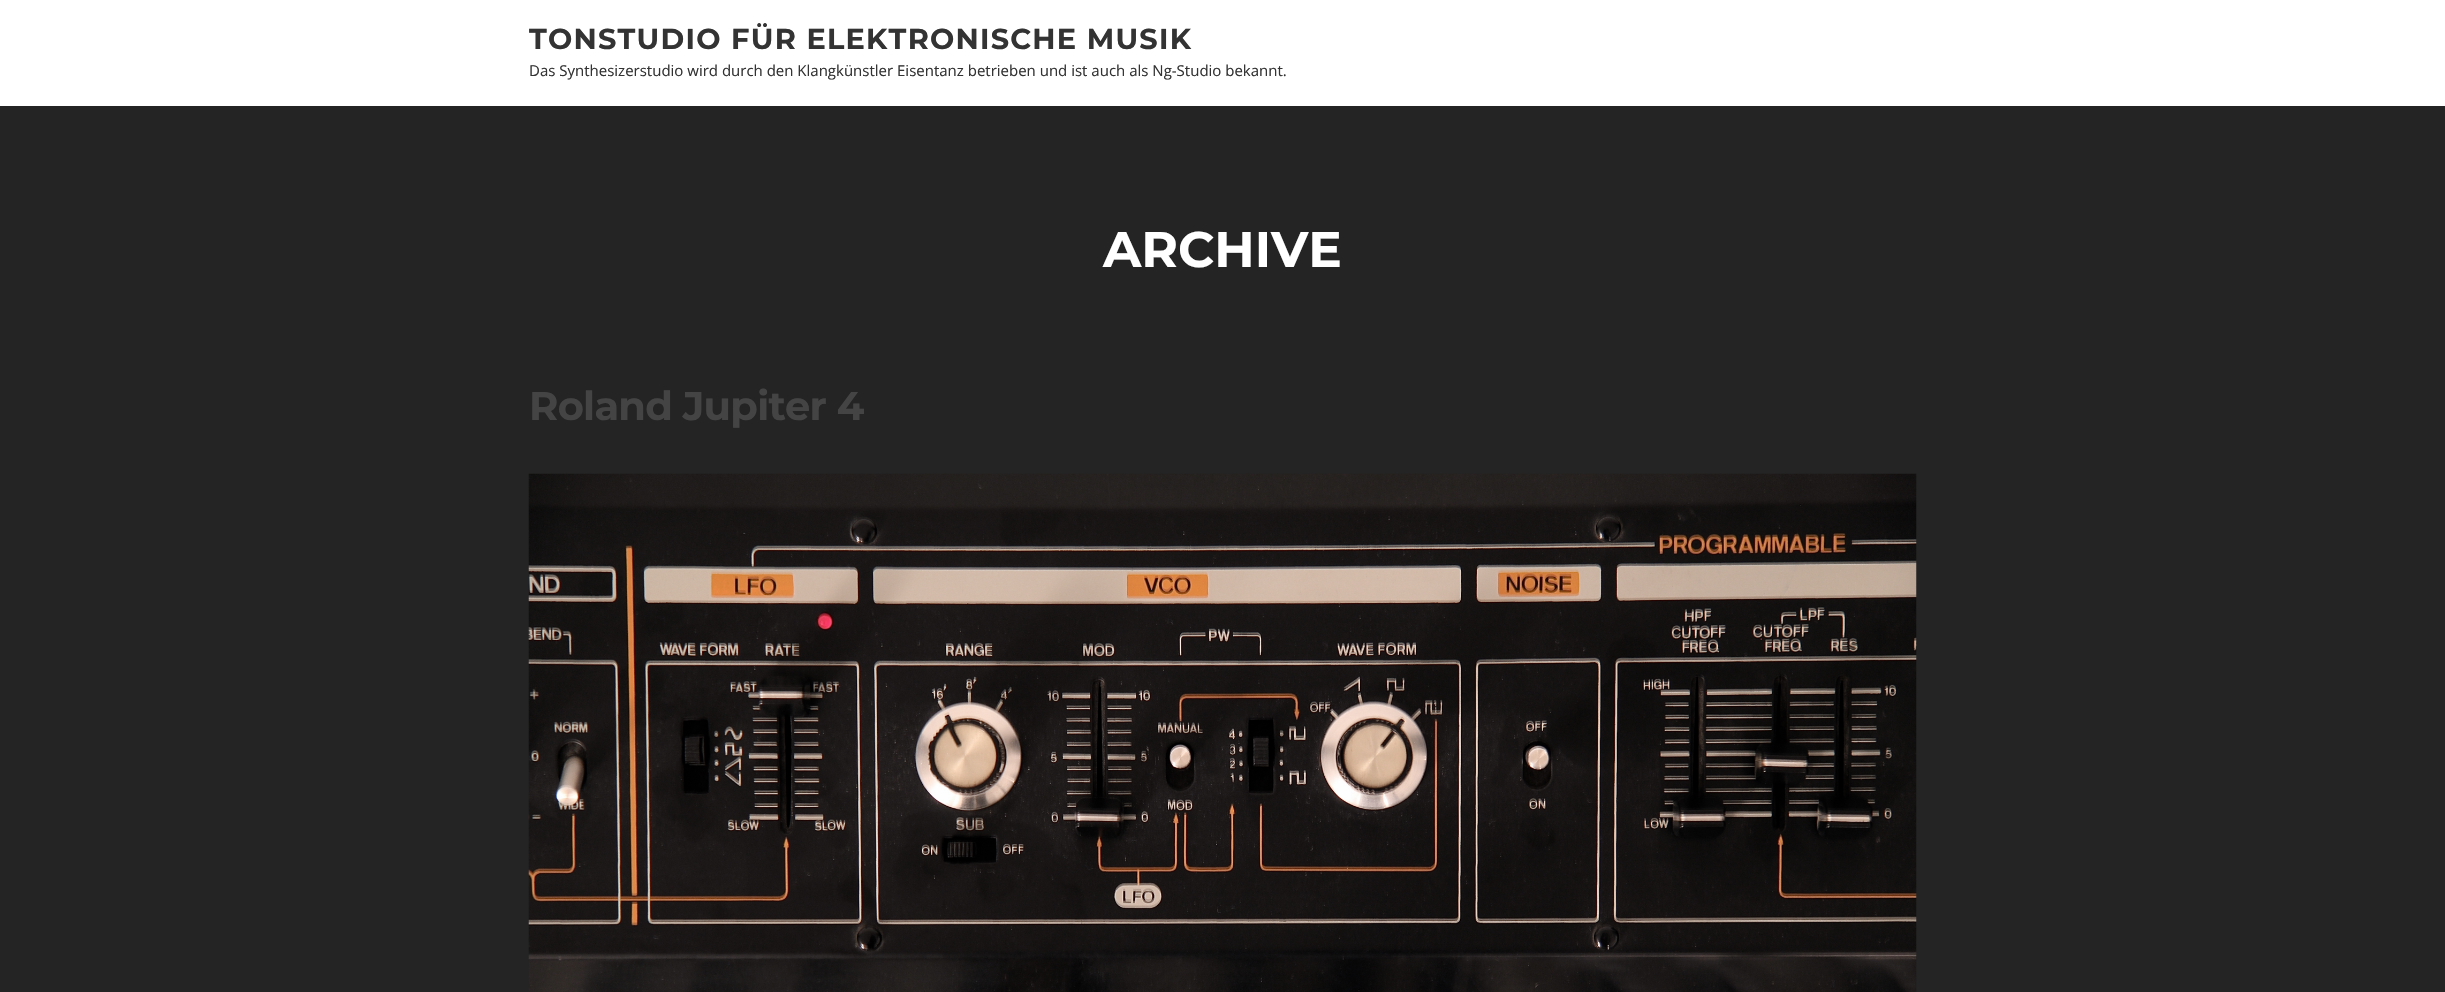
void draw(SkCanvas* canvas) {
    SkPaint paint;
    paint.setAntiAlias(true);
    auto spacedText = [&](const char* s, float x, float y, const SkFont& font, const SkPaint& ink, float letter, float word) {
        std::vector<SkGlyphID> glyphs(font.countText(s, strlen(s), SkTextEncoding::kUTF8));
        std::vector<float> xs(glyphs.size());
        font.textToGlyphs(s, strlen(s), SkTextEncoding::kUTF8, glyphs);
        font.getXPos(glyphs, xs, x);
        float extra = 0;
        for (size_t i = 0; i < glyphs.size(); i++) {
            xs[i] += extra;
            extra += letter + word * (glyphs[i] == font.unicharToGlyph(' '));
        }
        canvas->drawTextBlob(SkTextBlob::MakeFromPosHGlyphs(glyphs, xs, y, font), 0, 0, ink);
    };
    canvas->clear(0xFF242424);
    paint.setColor(0xFFFFFFFF);
    canvas->drawRect(SkRect::MakeXYWH(0, 0, 2445, 106), paint);
    SkFont font1(fontMgr->matchFamilyStyle("Montserrat", SkFontStyle::Bold()), 28.75f);
    font1.setSubpixel(true);
    paint.setColor(0xFF333333);
    spacedText("TONSTUDIO FÜR ELEKTRONISCHE MUSIK", 529, 49, font1, paint, 1.25f, 0);
    SkFont font2(fontMgr->matchFamilyStyle("Open Sans", SkFontStyle::Normal()), 15);
    font2.setSubpixel(true);
    canvas->drawString("Das Synthesizerstudio wird durch den Klangkünstler Eisentanz betrieben und ist auch als Ng-Studio bekannt.", 529, 76, font2, paint);
    SkFont font3(fontMgr->matchFamilyStyle("Montserrat", SkFontStyle::Bold()), 50);
    font3.setSubpixel(true);
    paint.setColor(0xFFFFFFFF);
    canvas->drawString("ARCHIVE", 1103, 267, font3, paint);
    SkFont font4(fontMgr->matchFamilyStyle("Montserrat", SkFontStyle::Bold()), 40);
    font4.setSubpixel(true);
    paint.setColor(0xFF444444);
    spacedText("Roland Jupiter 4", 529, 420, font4, paint, -0.75f, 0);
    canvas->drawImageRect(SkImages::DeferredFromEncodedData(SkData::MakeFromFileName("img1.png")), SkRect::MakeXYWH(528, 473, 1389, 519), SkSamplingOptions());
}
